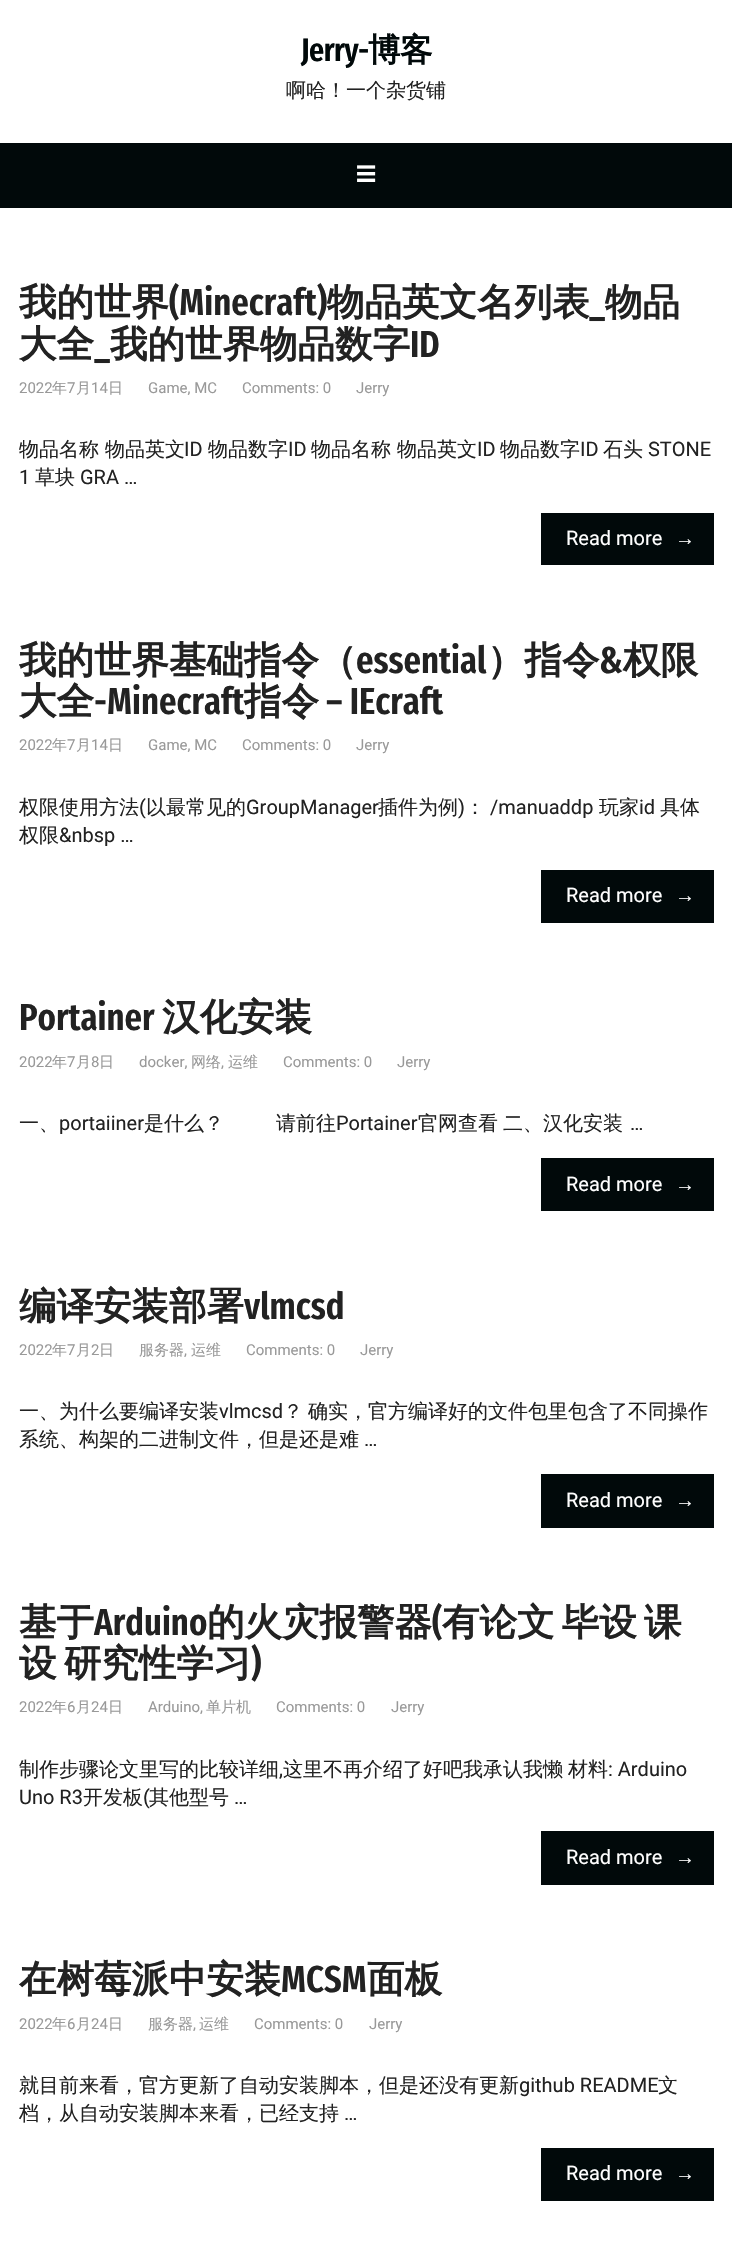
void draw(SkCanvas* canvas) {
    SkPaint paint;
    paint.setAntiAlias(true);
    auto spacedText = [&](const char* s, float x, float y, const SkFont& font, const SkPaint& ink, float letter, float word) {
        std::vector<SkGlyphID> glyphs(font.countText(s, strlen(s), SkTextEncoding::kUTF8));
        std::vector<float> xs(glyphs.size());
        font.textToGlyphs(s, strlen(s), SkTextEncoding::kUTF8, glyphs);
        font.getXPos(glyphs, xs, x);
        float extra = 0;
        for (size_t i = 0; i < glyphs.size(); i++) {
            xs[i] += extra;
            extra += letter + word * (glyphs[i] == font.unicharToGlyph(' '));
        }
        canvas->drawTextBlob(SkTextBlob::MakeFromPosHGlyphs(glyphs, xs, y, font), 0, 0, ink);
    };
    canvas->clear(0xFFFFFFFF);
    SkFont font1(fontMgr->matchFamilyStyle("Fira Sans Extra Condensed", SkFontStyle(600, SkFontStyle::kNormal_Width, SkFontStyle::kUpright_Slant)), 32.5f);
    font1.setSubpixel(true);
    paint.setColor(0xFF01090A);
    spacedText("Jerry-", 301, 61, font1, paint, -0.5f, 0);
    SkFont font2(fontMgr->matchFamilyStyle("WenQuanYi Zen Hei", SkFontStyle::Bold()), 32.5f);
    font2.setSubpixel(true);
    spacedText("博客", 368, 61, font2, paint, -0.5f, 0);
    SkFont font3(fontMgr->matchFamilyStyle("WenQuanYi Zen Hei", SkFontStyle(500, SkFontStyle::kNormal_Width, SkFontStyle::kUpright_Slant)), 20);
    font3.setSubpixel(true);
    paint.setColor(0xFF222222);
    canvas->drawString("啊哈！一个杂货铺", 286, 97, font3, paint);
    paint.setColor(0xFF01090A);
    canvas->drawRect(SkRect::MakeXYWH(0, 143, 732, 65), paint);
    paint.setColor(0xFFFFFFFF);
    canvas->drawString("☰", 356, 181, font3, paint);
    SkFont font4(fontMgr->matchFamilyStyle("WenQuanYi Zen Hei", SkFontStyle::Bold()), 37.5f);
    font4.setSubpixel(true);
    paint.setColor(0xFF222222);
    canvas->drawString("我的世界", 19, 315, font4, paint);
    SkFont font5(fontMgr->matchFamilyStyle("Fira Sans Extra Condensed", SkFontStyle(600, SkFontStyle::kNormal_Width, SkFontStyle::kUpright_Slant)), 37.5f);
    font5.setSubpixel(true);
    canvas->drawString("(Minecraft)", 169, 315, font5, paint);
    canvas->drawString("物品英文名列表", 327, 315, font4, paint);
    canvas->drawString("_", 589, 315, font5, paint);
    canvas->drawString("物品", 605, 315, font4, paint);
    canvas->drawString("大全", 19, 357, font4, paint);
    canvas->drawString("我的世界物品数字", 110, 357, font4, paint);
    canvas->drawString("ID", 410, 357, font5, paint);
    canvas->drawString("_", 94, 357, font5, paint);
    SkFont font6(fontMgr->matchFamilyStyle("Roboto", SkFontStyle::Normal()), 15);
    font6.setSubpixel(true);
    paint.setColor(0xFF999999);
    canvas->drawString("2022", 19, 393, font6, paint);
    SkFont font7(fontMgr->matchFamilyStyle("WenQuanYi Zen Hei", SkFontStyle(500, SkFontStyle::kNormal_Width, SkFontStyle::kUpright_Slant)), 15);
    font7.setSubpixel(true);
    canvas->drawString("年", 52, 393, font7, paint);
    canvas->drawString("7", 67, 393, font6, paint);
    canvas->drawString("月", 76, 393, font7, paint);
    canvas->drawString("14", 91, 393, font6, paint);
    canvas->drawString("日", 108, 393, font7, paint);
    canvas->drawString("Game, MC", 148, 393, font6, paint);
    canvas->drawString("Comments: 0", 242, 393, font6, paint);
    canvas->drawString("Jerry", 356, 393, font6, paint);
    paint.setColor(0xFF222222);
    canvas->drawString("物品名称 物品英文", 19, 456, font3, paint);
    SkFont font8(fontMgr->matchFamilyStyle("Roboto", SkFontStyle::Normal()), 20);
    font8.setSubpixel(true);
    canvas->drawString("ID", 184, 456, font8, paint);
    canvas->drawString("物品数字", 208, 456, font3, paint);
    canvas->drawString("ID", 288, 456, font8, paint);
    canvas->drawString("物品名称 物品英文", 311, 456, font3, paint);
    canvas->drawString("ID", 477, 456, font8, paint);
    canvas->drawString("物品数字", 500, 456, font3, paint);
    canvas->drawString("ID", 580, 456, font8, paint);
    canvas->drawString("石头", 603, 456, font3, paint);
    canvas->drawString("STONE", 648, 456, font8, paint);
    canvas->drawString("1", 19, 484, font8, paint);
    canvas->drawString("草块", 35, 484, font3, paint);
    canvas->drawString("GRA …", 80, 484, font8, paint);
    paint.setColor(0xFF01090A);
    canvas->drawRect(SkRect::MakeXYWH(541, 513, 173, 52), paint);
    paint.setColor(0xFFFFFFFF);
    canvas->drawString("Read more", 566, 545, font8, paint);
    SkFont font9(fontMgr->matchFamilyStyle("Liberation Sans", SkFontStyle::Normal()), 20);
    font9.setSubpixel(true);
    canvas->drawString("→", 675, 545, font9, paint);
    paint.setColor(0xFF222222);
    canvas->drawString("我的世界基础指令（", 19, 673, font4, paint);
    canvas->drawString("essential", 356, 673, font5, paint);
    canvas->drawString("）指令", 487, 673, font4, paint);
    canvas->drawString("&", 599, 673, font5, paint);
    canvas->drawString("权限", 623, 673, font4, paint);
    canvas->drawString("大全", 19, 714, font4, paint);
    canvas->drawString("-Minecraft", 94, 714, font5, paint);
    canvas->drawString("指令", 244, 714, font4, paint);
    canvas->drawString("– IEcraft", 326, 714, font5, paint);
    paint.setColor(0xFF999999);
    canvas->drawString("2022", 19, 750, font6, paint);
    canvas->drawString("年", 52, 750, font7, paint);
    canvas->drawString("7", 67, 750, font6, paint);
    canvas->drawString("月", 76, 750, font7, paint);
    canvas->drawString("14", 91, 750, font6, paint);
    canvas->drawString("日", 108, 750, font7, paint);
    canvas->drawString("Game, MC", 148, 750, font6, paint);
    canvas->drawString("Comments: 0", 242, 750, font6, paint);
    canvas->drawString("Jerry", 356, 750, font6, paint);
    paint.setColor(0xFF222222);
    canvas->drawString("权限使用方法", 19, 814, font3, paint);
    canvas->drawString("(", 139, 814, font8, paint);
    canvas->drawString("以最常见的", 146, 814, font3, paint);
    canvas->drawString("GroupManager", 246, 814, font8, paint);
    canvas->drawString("插件为例", 378, 814, font3, paint);
    canvas->drawString(")", 458, 814, font8, paint);
    canvas->drawString("：", 465, 814, font3, paint);
    canvas->drawString("/manuaddp", 490, 814, font8, paint);
    canvas->drawString("玩家", 599, 814, font3, paint);
    canvas->drawString("id", 639, 814, font8, paint);
    canvas->drawString("具体", 660, 814, font3, paint);
    canvas->drawString("权限", 19, 842, font3, paint);
    canvas->drawString("&nbsp …", 59, 842, font8, paint);
    paint.setColor(0xFF01090A);
    canvas->drawRect(SkRect::MakeXYWH(541, 870, 173, 53), paint);
    paint.setColor(0xFFFFFFFF);
    canvas->drawString("Read more", 566, 902, font8, paint);
    canvas->drawString("→", 675, 902, font9, paint);
    paint.setColor(0xFF222222);
    canvas->drawString("Portainer", 19, 1030, font5, paint);
    canvas->drawString("汉化安装", 162, 1030, font4, paint);
    paint.setColor(0xFF999999);
    canvas->drawString("2022", 19, 1067, font6, paint);
    canvas->drawString("年", 52, 1067, font7, paint);
    canvas->drawString("7", 67, 1067, font6, paint);
    canvas->drawString("月", 76, 1067, font7, paint);
    canvas->drawString("8", 91, 1067, font6, paint);
    canvas->drawString("日", 99, 1067, font7, paint);
    canvas->drawString("docker,", 139, 1067, font6, paint);
    canvas->drawString("网络", 191, 1067, font7, paint);
    canvas->drawString(",", 221, 1067, font6, paint);
    canvas->drawString("运维", 228, 1067, font7, paint);
    canvas->drawString("Comments: 0", 283, 1067, font6, paint);
    canvas->drawString("Jerry", 397, 1067, font6, paint);
    paint.setColor(0xFF222222);
    canvas->drawString("一、", 19, 1130, font3, paint);
    canvas->drawString("portaiiner", 59, 1130, font8, paint);
    canvas->drawString("是什么？", 144, 1130, font3, paint);
    canvas->drawString("请前往", 276, 1130, font3, paint);
    canvas->drawString("Portainer", 336, 1130, font8, paint);
    spacedText("官网查看 二、汉化安装", 418, 1130, font3, paint, 0, -1);
    canvas->drawString("…", 630, 1130, font8, paint);
    paint.setColor(0xFF01090A);
    canvas->drawRect(SkRect::MakeXYWH(541, 1158, 173, 53), paint);
    paint.setColor(0xFFFFFFFF);
    canvas->drawString("Read more", 566, 1191, font8, paint);
    canvas->drawString("→", 675, 1191, font9, paint);
    paint.setColor(0xFF222222);
    canvas->drawString("编译安装部署", 19, 1319, font4, paint);
    canvas->drawString("vlmcsd", 244, 1319, font5, paint);
    paint.setColor(0xFF999999);
    canvas->drawString("2022", 19, 1355, font6, paint);
    canvas->drawString("年", 52, 1355, font7, paint);
    canvas->drawString("7", 67, 1355, font6, paint);
    canvas->drawString("月", 76, 1355, font7, paint);
    canvas->drawString("2", 91, 1355, font6, paint);
    canvas->drawString("日", 99, 1355, font7, paint);
    canvas->drawString("服务器", 139, 1355, font7, paint);
    canvas->drawString(",", 184, 1355, font6, paint);
    canvas->drawString("运维", 191, 1355, font7, paint);
    canvas->drawString("Comments: 0", 246, 1355, font6, paint);
    canvas->drawString("Jerry", 360, 1355, font6, paint);
    paint.setColor(0xFF222222);
    canvas->drawString("一、为什么要编译安装", 19, 1418, font3, paint);
    canvas->drawString("vlmcsd", 219, 1418, font8, paint);
    spacedText("？ 确实，官方编译好的文件包里包含了不同操作", 283, 1418, font3, paint, 0, -1);
    canvas->drawString("系统、构架的二进制文件，但是还是难", 19, 1446, font3, paint);
    canvas->drawString("…", 364, 1446, font8, paint);
    paint.setColor(0xFF01090A);
    canvas->drawRect(SkRect::MakeXYWH(541, 1474, 173, 54), paint);
    paint.setColor(0xFFFFFFFF);
    canvas->drawString("Read more", 566, 1507, font8, paint);
    canvas->drawString("→", 675, 1507, font9, paint);
    paint.setColor(0xFF222222);
    canvas->drawString("基于", 19, 1635, font4, paint);
    canvas->drawString("Arduino", 94, 1635, font5, paint);
    canvas->drawString("的火灾报警器", 207, 1635, font4, paint);
    canvas->drawString("(", 432, 1635, font5, paint);
    spacedText("有论文 毕设 课", 442, 1635, font4, paint, 0, -4);
    spacedText("设 研究性学习", 19, 1676, font4, paint, 0, -4);
    canvas->drawString(")", 251, 1676, font5, paint);
    paint.setColor(0xFF999999);
    canvas->drawString("2022", 19, 1712, font6, paint);
    canvas->drawString("年", 52, 1712, font7, paint);
    canvas->drawString("6", 67, 1712, font6, paint);
    canvas->drawString("月", 76, 1712, font7, paint);
    canvas->drawString("24", 91, 1712, font6, paint);
    canvas->drawString("日", 108, 1712, font7, paint);
    canvas->drawString("Arduino,", 148, 1712, font6, paint);
    canvas->drawString("单片机", 206, 1712, font7, paint);
    canvas->drawString("Comments: 0", 276, 1712, font6, paint);
    canvas->drawString("Jerry", 391, 1712, font6, paint);
    paint.setColor(0xFF222222);
    canvas->drawString("制作步骤论文里写的比较详细", 19, 1776, font3, paint);
    canvas->drawString(",", 279, 1776, font8, paint);
    canvas->drawString("这里不再介绍了好吧我承认我懒", 283, 1776, font3, paint);
    canvas->drawString("材料", 568, 1776, font3, paint);
    canvas->drawString(": Arduino", 608, 1776, font8, paint);
    canvas->drawString("Uno R3", 19, 1804, font8, paint);
    canvas->drawString("开发板", 83, 1804, font3, paint);
    canvas->drawString("(", 143, 1804, font8, paint);
    canvas->drawString("其他型号", 149, 1804, font3, paint);
    canvas->drawString("…", 234, 1804, font8, paint);
    paint.setColor(0xFF01090A);
    canvas->drawRect(SkRect::MakeXYWH(541, 1831, 173, 54), paint);
    paint.setColor(0xFFFFFFFF);
    canvas->drawString("Read more", 566, 1864, font8, paint);
    canvas->drawString("→", 675, 1864, font9, paint);
    paint.setColor(0xFF222222);
    canvas->drawString("在树莓派中安装", 19, 1992, font4, paint);
    canvas->drawString("MCSM", 281, 1992, font5, paint);
    canvas->drawString("面板", 367, 1992, font4, paint);
    paint.setColor(0xFF999999);
    canvas->drawString("2022", 19, 2029, font6, paint);
    canvas->drawString("年", 52, 2029, font7, paint);
    canvas->drawString("6", 67, 2029, font6, paint);
    canvas->drawString("月", 76, 2029, font7, paint);
    canvas->drawString("24", 91, 2029, font6, paint);
    canvas->drawString("日", 108, 2029, font7, paint);
    canvas->drawString("服务器", 148, 2029, font7, paint);
    canvas->drawString(",", 193, 2029, font6, paint);
    canvas->drawString("运维", 199, 2029, font7, paint);
    canvas->drawString("Comments: 0", 254, 2029, font6, paint);
    canvas->drawString("Jerry", 369, 2029, font6, paint);
    paint.setColor(0xFF222222);
    canvas->drawString("就目前来看，官方更新了自动安装脚本，但是还没有更新", 19, 2092, font3, paint);
    canvas->drawString("github README", 519, 2092, font8, paint);
    canvas->drawString("文", 658, 2092, font3, paint);
    canvas->drawString("档，从自动安装脚本来看，已经支持", 19, 2120, font3, paint);
    canvas->drawString("…", 344, 2120, font8, paint);
    paint.setColor(0xFF01090A);
    canvas->drawRect(SkRect::MakeXYWH(541, 2148, 173, 53), paint);
    paint.setColor(0xFFFFFFFF);
    canvas->drawString("Read more", 566, 2180, font8, paint);
    canvas->drawString("→", 675, 2180, font9, paint);
}
